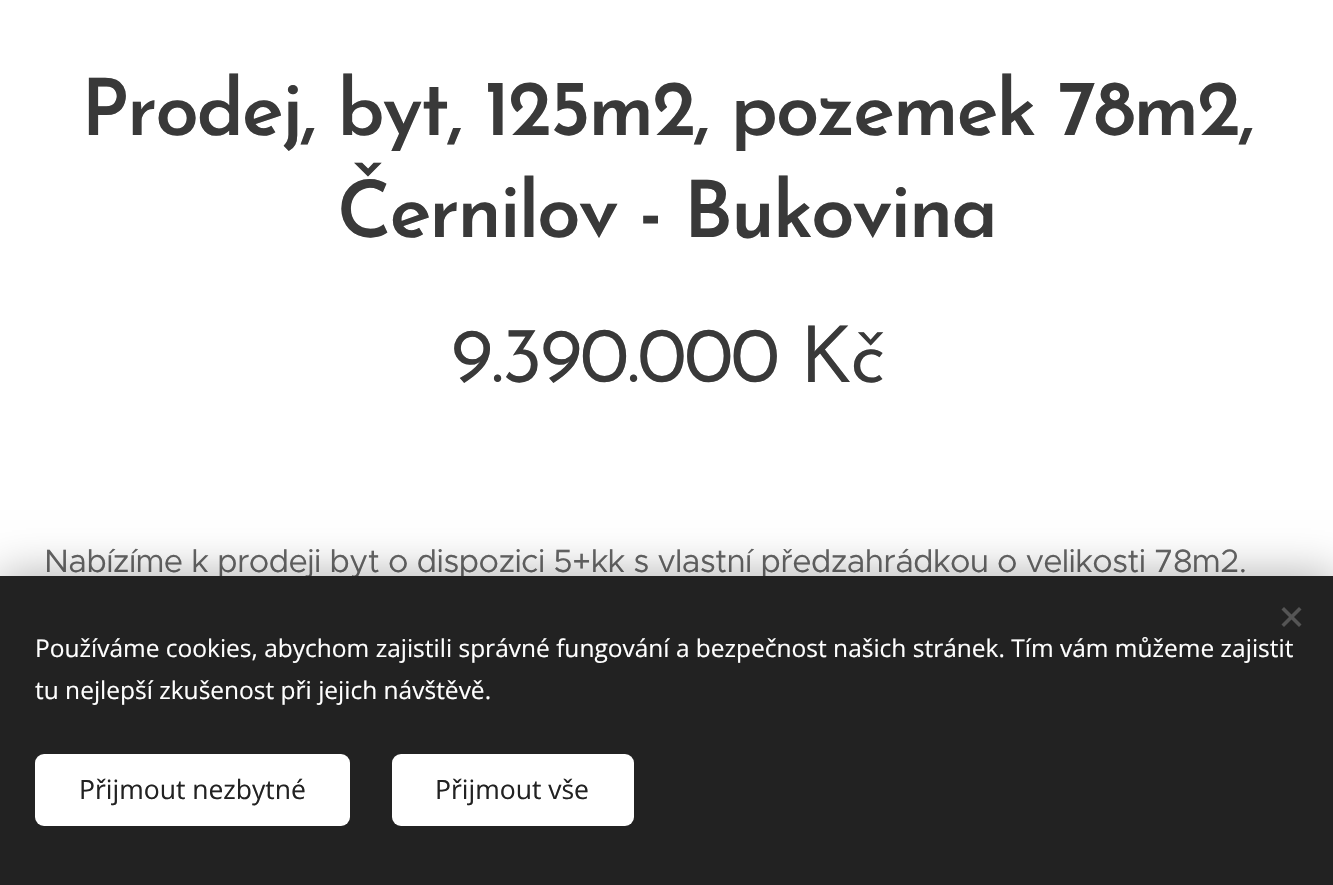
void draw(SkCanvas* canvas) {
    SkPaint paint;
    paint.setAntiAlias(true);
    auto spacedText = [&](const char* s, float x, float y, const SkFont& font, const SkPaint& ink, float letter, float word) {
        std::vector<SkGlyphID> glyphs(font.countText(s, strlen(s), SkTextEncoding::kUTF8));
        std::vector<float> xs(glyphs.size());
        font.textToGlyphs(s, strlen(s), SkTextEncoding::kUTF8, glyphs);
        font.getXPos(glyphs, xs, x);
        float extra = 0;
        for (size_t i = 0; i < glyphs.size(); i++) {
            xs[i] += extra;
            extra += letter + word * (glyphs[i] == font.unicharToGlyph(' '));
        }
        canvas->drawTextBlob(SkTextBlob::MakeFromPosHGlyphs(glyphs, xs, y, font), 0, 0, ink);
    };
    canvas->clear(0xFFFFFFFF);
    SkFont font1(fontMgr->matchFamilyStyle("Josefin Sans", SkFontStyle(600, SkFontStyle::kNormal_Width, SkFontStyle::kUpright_Slant)), 78.75f);
    font1.setSubpixel(true);
    paint.setColor(0xFF393939);
    spacedText("Prodej, byt, 125m2, pozemek 78m2,", 81, 135, font1, paint, -2.35f, 0);
    spacedText("Černilov - Bukovina", 337, 237, font1, paint, -2.35f, 0);
    SkFont font2(fontMgr->matchFamilyStyle("Josefin Sans", SkFontStyle::Normal()), 78.75f);
    font2.setSubpixel(true);
    spacedText("9.390.000 Kč", 451, 382, font2, paint, -2.35f, 0);
    SkFont font3(fontMgr->matchFamilyStyle("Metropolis", SkFontStyle::Normal()), 32.4f);
    font3.setSubpixel(true);
    paint.setColor(0xFF666666);
    spacedText("Nabízíme k prodeji byt o dispozici 5+kk s vlastní předzahrádkou o velikosti 78m2.", 44, 572, font3, paint, -0.65f, 0);
    paint.setColor(0x54000000);
    paint.setMaskFilter(SkMaskFilter::MakeBlur(kNormal_SkBlurStyle, 22));
    canvas->drawRect(SkRect::MakeXYWH(0, 576, 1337, 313), paint);
    paint.setMaskFilter(nullptr);
    paint.setColor(0xFF222222);
    canvas->drawRect(SkRect::MakeXYWH(0, 576, 1333, 309), paint);
    paint.setColor(0xFF555555);
    canvas->drawPath(SkPathBuilder().moveTo(1281.5f, 624.5f).lineTo(1299, 607).lineTo(1301.5f, 609.5f).lineTo(1284, 627).close().detach(), paint);
    canvas->drawPath(SkPathBuilder().moveTo(1284, 607).lineTo(1301.5f, 624.5f).lineTo(1299, 627).lineTo(1281.5f, 609.5f).close().detach(), paint);
    SkFont font4(fontMgr->matchFamilyStyle("Open Sans", SkFontStyle::Normal()), 24.5f);
    font4.setSubpixel(true);
    paint.setColor(0xFFFFFFFF);
    canvas->drawString("Používáme cookies, abychom zajistili správné fungování a bezpečnost našich stránek. Tím vám můžeme zajistit", 35, 657, font4, paint);
    canvas->drawString("tu nejlepší zkušenost při jejich návštěvě.", 35, 699, font4, paint);
    canvas->drawRoundRect(SkRect::MakeXYWH(35, 754, 315, 72), 9, 9, paint);
    SkFont font5(fontMgr->matchFamilyStyle("Open Sans", SkFontStyle::Normal()), 26.5f);
    font5.setSubpixel(true);
    paint.setColor(0xFF222222);
    canvas->drawString("Přijmout nezbytné", 79, 799, font5, paint);
    paint.setColor(0xFFFFFFFF);
    canvas->drawRoundRect(SkRect::MakeXYWH(392, 754, 242, 72), 9, 9, paint);
    paint.setColor(0xFF222222);
    canvas->drawString("Přijmout vše", 435, 799, font5, paint);
}
